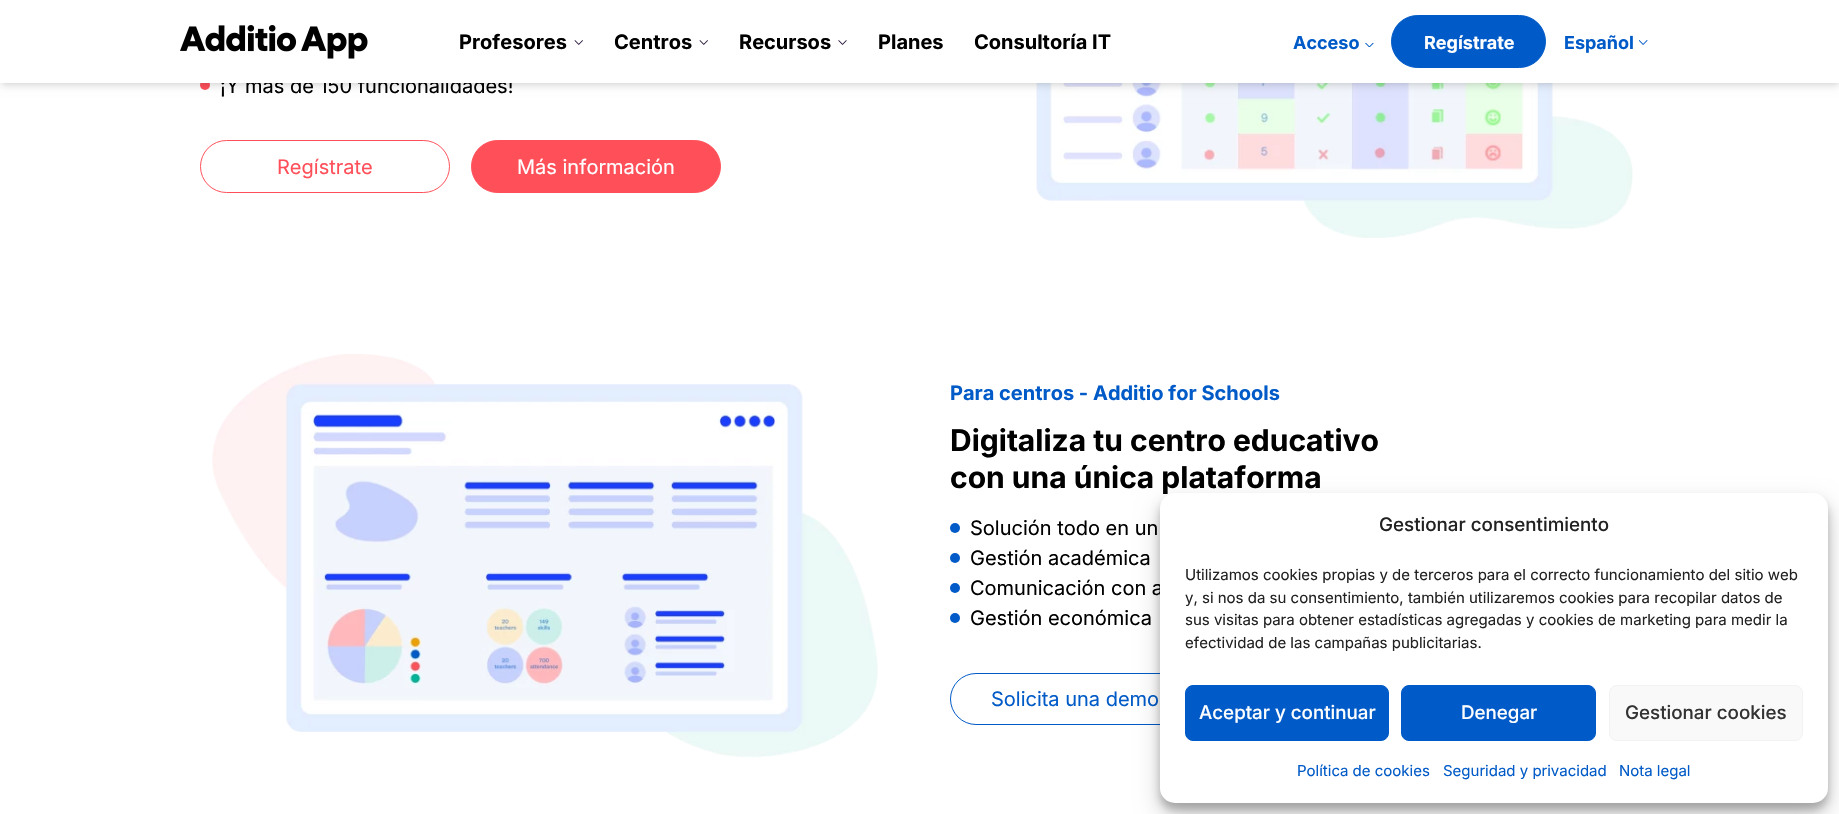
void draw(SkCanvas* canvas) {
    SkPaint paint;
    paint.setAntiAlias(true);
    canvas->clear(0xFFFFFFFF);
    paint.setColor(0xFFFF505A);
    canvas->drawCircle(205, 85, 5, paint);
    canvas->drawImageRect(SkImages::DeferredFromEncodedData(SkData::MakeFromFileName("img6.png")), SkRect::MakeXYWH(1036, 83, 597, 155), SkSamplingOptions());
    paint.setColor(0x1A000000);
    paint.setMaskFilter(SkMaskFilter::MakeBlur(kNormal_SkBlurStyle, 2.5f));
    canvas->drawRect(SkRect::MakeXYWH(3, 5, 1835, 78), paint);
    paint.setMaskFilter(nullptr);
    paint.setMaskFilter(SkMaskFilter::MakeBlur(kNormal_SkBlurStyle, 4));
    canvas->drawRect(SkRect::MakeXYWH(1, 6, 1838, 80), paint);
    paint.setMaskFilter(nullptr);
    SkFont font1(fontMgr->matchFamilyStyle("Inter", SkFontStyle::Normal()), 20);
    font1.setSubpixel(true);
    paint.setColor(0xFF000000);
    canvas->drawString("¡Y más de 150 funcionalidades!", 220, 93, font1, paint);
    paint.setColor(0xFFFFFFFF);
    canvas->drawRect(SkRect::MakeXYWH(0, 0, 1839, 83), paint);
    canvas->drawImageRect(SkImages::DeferredFromEncodedData(SkData::MakeFromFileName("img1.png")), SkRect::MakeXYWH(180, 25, 188, 34), SkSamplingOptions());
    SkFont font2(fontMgr->matchFamilyStyle("Inter", SkFontStyle::Bold()), 20);
    font2.setSubpixel(true);
    paint.setColor(0xFF000000);
    canvas->drawString("Profesores", 459, 49, font2, paint);
    canvas->drawImageRect(SkImages::DeferredFromEncodedData(SkData::MakeFromFileName("img2.png")), SkRect::MakeXYWH(574, 40, 9, 5), SkSamplingOptions());
    canvas->drawString("Centros", 614, 49, font2, paint);
    canvas->drawImageRect(SkImages::DeferredFromEncodedData(SkData::MakeFromFileName("img2.png")), SkRect::MakeXYWH(699, 40, 9, 5), SkSamplingOptions());
    canvas->drawString("Recursos", 739, 49, font2, paint);
    canvas->drawImageRect(SkImages::DeferredFromEncodedData(SkData::MakeFromFileName("img3.png")), SkRect::MakeXYWH(838, 40, 9, 5), SkSamplingOptions());
    canvas->drawString("Planes", 878, 49, font2, paint);
    canvas->drawString("Consultoría IT", 974, 49, font2, paint);
    SkFont font3(fontMgr->matchFamilyStyle("Inter", SkFontStyle::Bold()), 18);
    font3.setSubpixel(true);
    paint.setColor(0xFF005AC7);
    canvas->drawString("Acceso", 1293, 49, font3, paint);
    canvas->drawImageRect(SkImages::DeferredFromEncodedData(SkData::MakeFromFileName("img4.png")), SkRect::MakeXYWH(1365, 43, 9, 4), SkSamplingOptions());
    canvas->drawRoundRect(SkRect::MakeXYWH(1391.5f, 15.5f, 154, 52), 26, 26, paint);
    paint.setStyle(SkPaint::kStroke_Style);
    paint.setStrokeWidth(1);
    canvas->drawRoundRect(SkRect::MakeXYWH(1391.5f, 15.5f, 154, 52), 26, 26, paint);
    paint.setStyle(SkPaint::kFill_Style);
    paint.setColor(0xFFFFFFFF);
    canvas->drawString("Regístrate", 1424, 49, font3, paint);
    paint.setColor(0xFF005AC7);
    canvas->drawString("Español", 1564, 49, font3, paint);
    canvas->drawImageRect(SkImages::DeferredFromEncodedData(SkData::MakeFromFileName("img5.png")), SkRect::MakeXYWH(1639, 40, 9, 5), SkSamplingOptions());
    paint.setStyle(SkPaint::kStroke_Style);
    paint.setColor(0xFFFF505A);
    canvas->drawRoundRect(SkRect::MakeXYWH(200.5f, 140.5f, 249, 52), 26, 26, paint);
    paint.setStyle(SkPaint::kFill_Style);
    canvas->drawString("Regístrate", 277, 174, font1, paint);
    canvas->drawRoundRect(SkRect::MakeXYWH(471.5f, 140.5f, 249, 52), 26, 26, paint);
    paint.setStyle(SkPaint::kStroke_Style);
    canvas->drawRoundRect(SkRect::MakeXYWH(471.5f, 140.5f, 249, 52), 26, 26, paint);
    paint.setStyle(SkPaint::kFill_Style);
    paint.setColor(0xFFFFFFFF);
    canvas->drawString("Más información", 517, 174, font1, paint);
    canvas->drawImageRect(SkImages::DeferredFromEncodedData(SkData::MakeFromFileName("img7.png")), SkRect::MakeXYWH(212, 354, 666, 404), SkSamplingOptions());
    paint.setColor(0xFF005AC7);
    canvas->drawString("Para centros - Additio for Schools", 950, 400, font2, paint);
    SkFont font4(fontMgr->matchFamilyStyle("Inter", SkFontStyle::Bold()), 30);
    font4.setSubpixel(true);
    paint.setColor(0xFF000000);
    canvas->drawString("Digitaliza tu centro educativo", 950, 451, font4, paint);
    canvas->drawString("con una única plataforma", 950, 488, font4, paint);
    paint.setColor(0xFF005AC7);
    canvas->drawCircle(955, 528, 5, paint);
    paint.setColor(0xFF000000);
    canvas->drawString("Solución todo en un", 970, 535, font1, paint);
    paint.setColor(0xFF005AC7);
    canvas->drawCircle(955, 558, 5, paint);
    paint.setColor(0xFF000000);
    canvas->drawString("Gestión académica", 970, 565, font1, paint);
    paint.setColor(0xFF005AC7);
    canvas->drawCircle(955, 588, 5, paint);
    paint.setColor(0xFF000000);
    canvas->drawString("Comunicación con a", 970, 595, font1, paint);
    paint.setColor(0xFF005AC7);
    canvas->drawCircle(955, 618, 5, paint);
    paint.setColor(0xFF000000);
    canvas->drawString("Gestión económica", 970, 625, font1, paint);
    paint.setStyle(SkPaint::kStroke_Style);
    paint.setColor(0xFF005AC7);
    canvas->drawRoundRect(SkRect::MakeXYWH(950.5f, 673.5f, 249, 51), 25.5f, 25.5f, paint);
    paint.setStyle(SkPaint::kFill_Style);
    canvas->drawString("Solicita una demo", 991, 706, font1, paint);
    paint.setColor(0x3B000000);
    paint.setMaskFilter(SkMaskFilter::MakeBlur(kNormal_SkBlurStyle, 4));
    canvas->drawRoundRect(SkRect::MakeXYWH(1160, 500, 668, 310), 15, 15, paint);
    paint.setMaskFilter(nullptr);
    paint.setColor(0x30000000);
    paint.setMaskFilter(SkMaskFilter::MakeBlur(kNormal_SkBlurStyle, 12.5f));
    canvas->drawRoundRect(SkRect::MakeXYWH(1160, 505, 668, 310), 15, 15, paint);
    paint.setMaskFilter(nullptr);
    paint.setColor(0xFFFFFFFF);
    canvas->drawRoundRect(SkRect::MakeXYWH(1160, 493, 668, 310), 15, 15, paint);
    SkFont font5(fontMgr->matchFamilyStyle("Inter", SkFontStyle(500, SkFontStyle::kNormal_Width, SkFontStyle::kUpright_Slant)), 18.75f);
    font5.setSubpixel(true);
    paint.setColor(0xFF222222);
    canvas->drawString("Gestionar consentimiento", 1379, 531, font5, paint);
    SkFont font6(fontMgr->matchFamilyStyle("Inter", SkFontStyle::Normal()), 15);
    font6.setSubpixel(true);
    canvas->drawString("Utilizamos cookies propias y de terceros para el correcto funcionamiento del sitio web", 1185, 580, font6, paint);
    canvas->drawString("y, si nos da su consentimiento, también utilizaremos cookies para recopilar datos de", 1185, 603, font6, paint);
    canvas->drawString("sus visitas para obtener estadísticas agregadas y cookies de marketing para medir la", 1185, 625, font6, paint);
    canvas->drawString("efectividad de las campañas publicitarias.", 1185, 648, font6, paint);
    paint.setColor(0xFF005AC7);
    canvas->drawRoundRect(SkRect::MakeXYWH(1185.5f, 685.5f, 203, 55), 7.5f, 7.5f, paint);
    paint.setStyle(SkPaint::kStroke_Style);
    canvas->drawRoundRect(SkRect::MakeXYWH(1185.5f, 685.5f, 203, 55), 7.5f, 7.5f, paint);
    paint.setStyle(SkPaint::kFill_Style);
    paint.setColor(0xFFFFFFFF);
    canvas->drawString("Aceptar y continuar", 1199, 719, font5, paint);
    paint.setColor(0xFF005AC7);
    canvas->drawRoundRect(SkRect::MakeXYWH(1401.5f, 685.5f, 194, 55), 7.5f, 7.5f, paint);
    paint.setStyle(SkPaint::kStroke_Style);
    canvas->drawRoundRect(SkRect::MakeXYWH(1401.5f, 685.5f, 194, 55), 7.5f, 7.5f, paint);
    paint.setStyle(SkPaint::kFill_Style);
    paint.setColor(0xFFFFFFFF);
    canvas->drawString("Denegar", 1461, 719, font5, paint);
    paint.setColor(0xFFF9F9F9);
    canvas->drawRoundRect(SkRect::MakeXYWH(1609.5f, 685.5f, 193, 55), 7.5f, 7.5f, paint);
    paint.setStyle(SkPaint::kStroke_Style);
    paint.setColor(0xFFF2F2F2);
    canvas->drawRoundRect(SkRect::MakeXYWH(1609.5f, 685.5f, 193, 55), 7.5f, 7.5f, paint);
    paint.setStyle(SkPaint::kFill_Style);
    paint.setColor(0xFF333333);
    canvas->drawString("Gestionar cookies", 1625, 719, font5, paint);
    paint.setColor(0xFF005AC7);
    canvas->drawString("Política de cookies", 1297, 776, font6, paint);
    canvas->drawString("Seguridad y privacidad", 1443, 776, font6, paint);
    canvas->drawString("Nota legal", 1619, 776, font6, paint);
}
